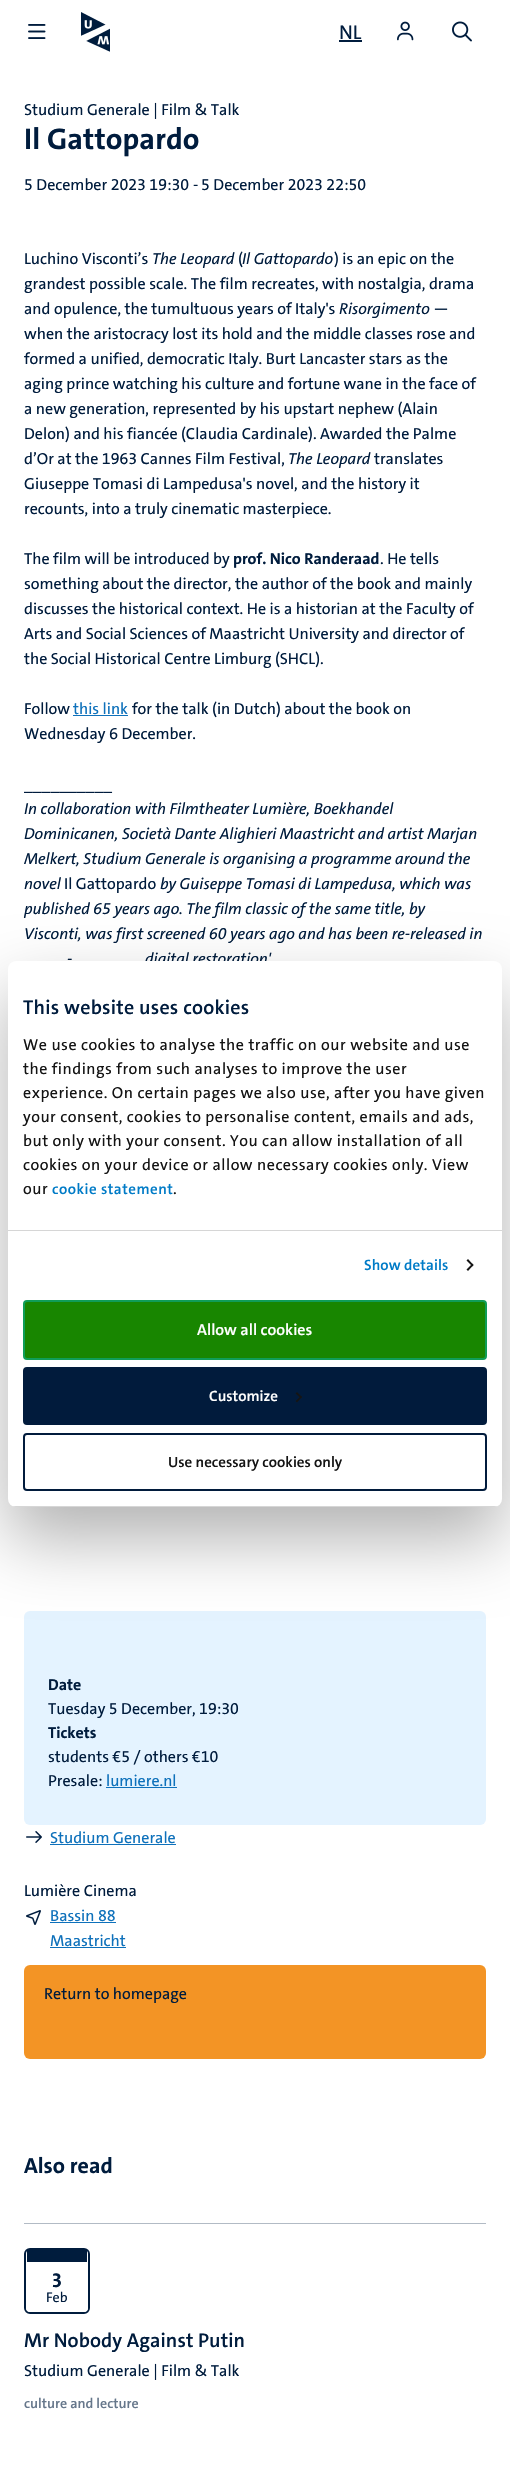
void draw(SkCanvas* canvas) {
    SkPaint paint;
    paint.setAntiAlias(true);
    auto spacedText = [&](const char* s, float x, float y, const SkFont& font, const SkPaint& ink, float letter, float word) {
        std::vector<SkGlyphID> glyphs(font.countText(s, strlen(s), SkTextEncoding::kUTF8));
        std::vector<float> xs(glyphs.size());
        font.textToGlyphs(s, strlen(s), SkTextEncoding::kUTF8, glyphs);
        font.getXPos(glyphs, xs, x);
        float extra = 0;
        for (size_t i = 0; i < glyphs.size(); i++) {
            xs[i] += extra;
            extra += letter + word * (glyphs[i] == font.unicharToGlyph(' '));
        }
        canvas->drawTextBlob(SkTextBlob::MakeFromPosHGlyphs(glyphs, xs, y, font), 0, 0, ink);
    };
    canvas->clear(0xFFFFFFFF);
    canvas->drawImageRect(SkImages::DeferredFromEncodedData(SkData::MakeFromFileName("img1.png")), SkRect::MakeXYWH(28, 24, 18, 15), SkSamplingOptions());
    canvas->drawImageRect(SkImages::DeferredFromEncodedData(SkData::MakeFromFileName("img2.png")), SkRect::MakeXYWH(81, 12, 29, 40), SkSamplingOptions());
    SkFont font1(fontMgr->matchFamilyStyle("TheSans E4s", SkFontStyle(500, SkFontStyle::kNormal_Width, SkFontStyle::kUpright_Slant)), 20);
    font1.setSubpixel(true);
    paint.setColor(0xFF001C3D);
    canvas->drawString("NL", 339, 39, font1, paint);
    canvas->drawRect(SkRect::MakeXYWH(339, 40, 23, 2), paint);
    canvas->drawImageRect(SkImages::DeferredFromEncodedData(SkData::MakeFromFileName("img3.png")), SkRect::MakeXYWH(397, 21, 17, 20), SkSamplingOptions());
    canvas->drawImageRect(SkImages::DeferredFromEncodedData(SkData::MakeFromFileName("img4.png")), SkRect::MakeXYWH(452, 21, 20, 21), SkSamplingOptions());
    SkFont font2(fontMgr->matchFamilyStyle("TheSans E4s", SkFontStyle(500, SkFontStyle::kNormal_Width, SkFontStyle::kUpright_Slant)), 16);
    font2.setSubpixel(true);
    canvas->drawString("Studium Generale | Film & Talk", 24, 115, font2, paint);
    SkFont font3(fontMgr->matchFamilyStyle("TheSans E4s", SkFontStyle::Bold()), 30);
    font3.setSubpixel(true);
    spacedText("Il Gattopardo", 24, 149, font3, paint, 0.1f, 0);
    SkFont font4(fontMgr->matchFamilyStyle("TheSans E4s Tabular", SkFontStyle(500, SkFontStyle::kNormal_Width, SkFontStyle::kUpright_Slant)), 16);
    font4.setSubpixel(true);
    canvas->drawString("5 December 2023 19:30", 24, 190, font4, paint);
    canvas->drawString("-", 193, 190, font2, paint);
    canvas->drawString("5 December 2023 22:50", 201, 190, font4, paint);
    canvas->drawString("Luchino Visconti’s", 24, 264, font2, paint);
    SkFont font5(fontMgr->matchFamilyStyle("TheSans E4s", SkFontStyle(500, SkFontStyle::kNormal_Width, SkFontStyle::kItalic_Slant)), 16);
    font5.setSubpixel(true);
    canvas->drawString("The Leopard", 152, 264, font5, paint);
    canvas->drawString("(", 238, 264, font2, paint);
    canvas->drawString("Il Gattopardo", 242, 264, font5, paint);
    canvas->drawString(") is an epic on the", 334, 264, font2, paint);
    canvas->drawString("grandest possible scale. The film recreates, with nostalgia, drama", 24, 289, font2, paint);
    canvas->drawString("and opulence, the tumultuous years of Italy's", 24, 314, font2, paint);
    canvas->drawString("Risorgimento", 339, 314, font5, paint);
    canvas->drawString("—", 433, 314, font2, paint);
    canvas->drawString("when the aristocracy lost its hold and the middle classes rose and", 24, 339, font2, paint);
    canvas->drawString("formed a unified, democratic Italy. Burt Lancaster stars as the", 24, 364, font2, paint);
    canvas->drawString("aging prince watching his culture and fortune wane in the face of", 24, 389, font2, paint);
    canvas->drawString("a new generation, represented by his upstart nephew (Alain", 24, 414, font2, paint);
    canvas->drawString("Delon) and his fiancée (Claudia Cardinale). Awarded the Palme", 24, 439, font2, paint);
    canvas->drawString("d’Or at the 1963 Cannes Film Festival,", 24, 464, font4, paint);
    canvas->drawString("The Leopard", 288, 464, font5, paint);
    canvas->drawString("translates", 374, 464, font2, paint);
    canvas->drawString("Giuseppe Tomasi di Lampedusa's novel, and the history it", 24, 489, font2, paint);
    canvas->drawString("recounts, into a truly cinematic masterpiece.", 24, 514, font2, paint);
    canvas->drawString("The film will be introduced by", 24, 564, font2, paint);
    SkFont font6(fontMgr->matchFamilyStyle("TheSans E4s", SkFontStyle::Bold()), 16);
    font6.setSubpixel(true);
    canvas->drawString("prof. Nico Randeraad", 233, 564, font6, paint);
    canvas->drawString(". He tells", 380, 564, font2, paint);
    canvas->drawString("something about the director, the author of the book and mainly", 24, 589, font2, paint);
    canvas->drawString("discusses the historical context. He is a historian at the Faculty of", 24, 614, font2, paint);
    canvas->drawString("Arts and Social Sciences of Maastricht University and director of", 24, 639, font2, paint);
    canvas->drawString("the Social Historical Centre Limburg (SHCL).", 24, 664, font2, paint);
    canvas->drawString("Follow", 24, 714, font2, paint);
    paint.setColor(0xFF0E71BB);
    canvas->drawString("this link", 73, 714, font2, paint);
    canvas->drawRect(SkRect::MakeXYWH(73, 715, 55, 1), paint);
    paint.setColor(0xFF001C3D);
    canvas->drawString("for the talk (in Dutch) about the book on", 132, 714, font2, paint);
    canvas->drawString("Wednesday 6 December.", 24, 739, font2, paint);
    canvas->drawString("__________", 24, 789, font2, paint);
    canvas->drawString("In collaboration with Filmtheater Lumière, Boekhandel", 24, 814, font5, paint);
    canvas->drawString("Dominicanen, Società Dante Alighieri Maastricht and artist Marjan", 24, 839, font5, paint);
    canvas->drawString("Melkert, Studium Generale is organising a programme around the", 24, 864, font5, paint);
    canvas->drawString("novel", 24, 889, font5, paint);
    canvas->drawString("Il Gattopardo", 64, 889, font2, paint);
    canvas->drawString("by Guiseppe Tomasi di Lampedusa, which was", 160, 889, font5, paint);
    SkFont font7(fontMgr->matchFamilyStyle("TheSans E4s Tabular", SkFontStyle(500, SkFontStyle::kNormal_Width, SkFontStyle::kItalic_Slant)), 16);
    font7.setSubpixel(true);
    canvas->drawString("published 65 years ago. The film classic of the same title, by", 24, 914, font7, paint);
    canvas->drawString("Visconti, was first screened 60 years ago and has been re-released in", 24, 939, font7, paint);
    canvas->drawString("-", 67, 964, font5, paint);
    canvas->drawString("digital restoration'", 145, 964, font5, paint);
    paint.setColor(0xFFE4F3FF);
    canvas->drawRoundRect(SkRect::MakeXYWH(24, 1611, 462, 214), 6, 6, paint);
    paint.setColor(0xFF001C3D);
    canvas->drawString("Date", 48, 1690, font6, paint);
    canvas->drawString("Tuesday 5 December, 19:30", 48, 1714, font4, paint);
    canvas->drawString("Tickets", 48, 1738, font6, paint);
    canvas->drawString("students €5 / others €10", 48, 1762, font4, paint);
    canvas->drawString("Presale:", 48, 1786, font2, paint);
    paint.setColor(0xFF0E71BB);
    canvas->drawString("lumiere.nl", 106, 1786, font2, paint);
    canvas->drawRect(SkRect::MakeXYWH(106, 1787, 71, 1), paint);
    canvas->drawImageRect(SkImages::DeferredFromEncodedData(SkData::MakeFromFileName("img5.png")), SkRect::MakeXYWH(26, 1831, 16, 12), SkSamplingOptions());
    canvas->drawString("Studium Generale", 50, 1843, font2, paint);
    canvas->drawRect(SkRect::MakeXYWH(50, 1844, 126, 1), paint);
    paint.setColor(0xFF001C3D);
    canvas->drawString("Lumière Cinema", 24, 1896, font2, paint);
    canvas->drawImageRect(SkImages::DeferredFromEncodedData(SkData::MakeFromFileName("img6.png")), SkRect::MakeXYWH(26, 1910, 15, 15), SkSamplingOptions());
    paint.setColor(0xFF0E71BB);
    canvas->drawString("Bassin 88", 50, 1921, font2, paint);
    canvas->drawRect(SkRect::MakeXYWH(50, 1922, 66, 1), paint);
    canvas->drawString("Maastricht", 50, 1946, font2, paint);
    canvas->drawRect(SkRect::MakeXYWH(50, 1947, 76, 1), paint);
    paint.setColor(0xFFF39425);
    canvas->drawRoundRect(SkRect::MakeXYWH(24, 1965, 462, 94), 6, 6, paint);
    paint.setColor(0xFF001C3D);
    canvas->drawString("Return to homepage", 44, 1999, font2, paint);
    SkFont font8(fontMgr->matchFamilyStyle("TheSans E4s", SkFontStyle::Bold()), 22);
    font8.setSubpixel(true);
    canvas->drawString("Also read", 24, 2173, font8, paint);
    paint.setColor(0xFFB2BBC5);
    canvas->drawRect(SkRect::MakeXYWH(24, 2223, 462, 1), paint);
    paint.setStyle(SkPaint::kStroke_Style);
    paint.setStrokeWidth(2);
    paint.setColor(0xFF001C3D);
    canvas->drawRoundRect(SkRect::MakeXYWH(25, 2249, 64, 64), 5, 5, paint);
    paint.setStyle(SkPaint::kFill_Style);
    canvas->drawRect(SkRect::MakeXYWH(27, 2250, 60, 12), paint);
    paint.setColor(0xFFFFFFFF);
    canvas->drawPath(SkPathBuilder().moveTo(26, 2262).lineTo(26, 2308).cubicTo(26, 2310, 28, 2312, 30, 2312).lineTo(84, 2312).cubicTo(86, 2312, 88, 2310, 88, 2308).lineTo(88, 2262).close().detach(), paint);
    SkFont font9(fontMgr->matchFamilyStyle("TheSans E4s", SkFontStyle::Bold()), 20);
    font9.setSubpixel(true);
    paint.setColor(0xFF001C3D);
    canvas->drawString("3", 52, 2287, font9, paint);
    SkFont font10(fontMgr->matchFamilyStyle("TheSans E4s", SkFontStyle(500, SkFontStyle::kNormal_Width, SkFontStyle::kUpright_Slant)), 14);
    font10.setSubpixel(true);
    canvas->drawString("Feb", 46, 2302, font10, paint);
    SkFont font11(fontMgr->matchFamilyStyle("TheSans E4s", SkFontStyle(600, SkFontStyle::kNormal_Width, SkFontStyle::kUpright_Slant)), 20);
    font11.setSubpixel(true);
    spacedText("Mr Nobody Against Putin", 24, 2347, font11, paint, 0.1f, 0);
    canvas->drawString("Studium Generale | Film & Talk", 24, 2376, font2, paint);
    SkFont font12(fontMgr->matchFamilyStyle("TheSans E4s", SkFontStyle(600, SkFontStyle::kNormal_Width, SkFontStyle::kUpright_Slant)), 14);
    font12.setSubpixel(true);
    paint.setColor(0xFF66778B);
    canvas->drawString("culture and lecture", 24, 2408, font12, paint);
    paint.setColor(0x4D000000);
    paint.setMaskFilter(SkMaskFilter::MakeBlur(kNormal_SkBlurStyle, 34));
    canvas->drawRoundRect(SkRect::MakeXYWH(8, 993, 494, 546), 8, 8, paint);
    paint.setMaskFilter(nullptr);
    paint.setColor(0xFFFFFFFF);
    canvas->drawRoundRect(SkRect::MakeXYWH(8, 961, 494, 546), 8, 8, paint);
    paint.setColor(0xFFD6D6D6);
    canvas->drawRect(SkRect::MakeXYWH(8, 1230, 494, 1), paint);
    paint.setColor(0xFF001C3D);
    spacedText("This website uses cookies", 23, 1014, font11, paint, 0.25f, 0);
    paint.setColor(0xFF141414);
    spacedText("We use cookies to analyse the traffic on our website and use", 23, 1050, font2, paint, 0.5f, 0);
    spacedText("the findings from such analyses to improve the user", 23, 1074, font2, paint, 0.5f, 0);
    spacedText("experience. On certain pages we also use, after you have given", 23, 1098, font2, paint, 0.5f, 0);
    spacedText("your consent, cookies to personalise content, emails and ads,", 23, 1122, font2, paint, 0.5f, 0);
    spacedText("but only with your consent. You can allow installation of all", 23, 1146, font2, paint, 0.5f, 0);
    spacedText("cookies on your device or allow necessary cookies only. View", 23, 1170, font2, paint, 0.5f, 0);
    spacedText("our", 23, 1194, font2, paint, 0.5f, 0);
    SkFont font13(fontMgr->matchFamilyStyle("TheSans E4s", SkFontStyle(600, SkFontStyle::kNormal_Width, SkFontStyle::kUpright_Slant)), 15);
    font13.setSubpixel(true);
    paint.setColor(0xFF007BC7);
    spacedText("cookie statement", 52, 1194, font13, paint, 0.5f, 0);
    paint.setColor(0xFF141414);
    spacedText(".", 173, 1194, font2, paint, 0.5f, 0);
    paint.setColor(0xFF007BC7);
    spacedText("Show details", 364, 1270, font13, paint, 0.1f, 0);
    paint.setColor(0xFF141414);
    canvas->drawPath(SkPathBuilder().moveTo(468, 1259).lineTo(473.5f, 1265).lineTo(472.5f, 1266.5f).lineTo(466.5f, 1260.5f).close().detach(), paint);
    canvas->drawPath(SkPathBuilder().moveTo(472.5f, 1263.5f).lineTo(473.5f, 1265).lineTo(468, 1271).lineTo(466.5f, 1269.5f).close().detach(), paint);
    canvas->save();
    canvas->clipPath(SkPathBuilder().moveTo(16, 961).lineTo(494, 961).cubicTo(498.5f, 961, 502, 964.5f, 502, 969).lineTo(502, 1499).cubicTo(502, 1503.5f, 498.5f, 1507, 494, 1507).lineTo(16, 1507).cubicTo(11.5f, 1507, 8, 1503.5f, 8, 1499).lineTo(8, 969).cubicTo(8, 964.5f, 11.5f, 961, 16, 961).close().detach(), true);
    paint.setColor(0xFFD6D6D6);
    canvas->drawRect(SkRect::MakeXYWH(8, 1506, 494, 1), paint);
    canvas->restore();
    paint.setColor(0xFF188600);
    canvas->drawRoundRect(SkRect::MakeXYWH(24, 1301, 462, 58), 3, 3, paint);
    paint.setStyle(SkPaint::kStroke_Style);
    paint.setColor(0xFF0F9D58);
    canvas->drawRoundRect(SkRect::MakeXYWH(24, 1301, 462, 58), 3, 3, paint);
    SkFont font14(fontMgr->matchFamilyStyle("TheSans E4s", SkFontStyle(600, SkFontStyle::kNormal_Width, SkFontStyle::kUpright_Slant)), 16);
    font14.setSubpixel(true);
    paint.setStyle(SkPaint::kFill_Style);
    paint.setColor(0xFFFFFFFF);
    canvas->drawString("Allow all cookies", 197, 1335, font14, paint);
    paint.setColor(0xFF011B3C);
    canvas->drawRoundRect(SkRect::MakeXYWH(24, 1368, 462, 56), 3, 3, paint);
    paint.setStyle(SkPaint::kStroke_Style);
    canvas->drawRoundRect(SkRect::MakeXYWH(24, 1368, 462, 56), 3, 3, paint);
    paint.setStyle(SkPaint::kFill_Style);
    paint.setColor(0xFFFFFFFF);
    canvas->drawString("Customize", 209, 1401, font13, paint);
    paint.setColor(0xFF141414);
    canvas->drawPath(SkPathBuilder().moveTo(297, 1392).lineTo(302, 1397).lineTo(301, 1398.5f).lineTo(295.5f, 1393.5f).close().detach(), paint);
    canvas->drawPath(SkPathBuilder().moveTo(301, 1396).lineTo(302, 1397).lineTo(297, 1402.5f).lineTo(295.5f, 1401).close().detach(), paint);
    paint.setStyle(SkPaint::kStroke_Style);
    paint.setColor(0xFF011B3C);
    canvas->drawRoundRect(SkRect::MakeXYWH(24, 1434, 462, 56), 3, 3, paint);
    paint.setStyle(SkPaint::kFill_Style);
    paint.setColor(0xFF141414);
    canvas->drawString("Use necessary cookies only", 168, 1467, font13, paint);
}
